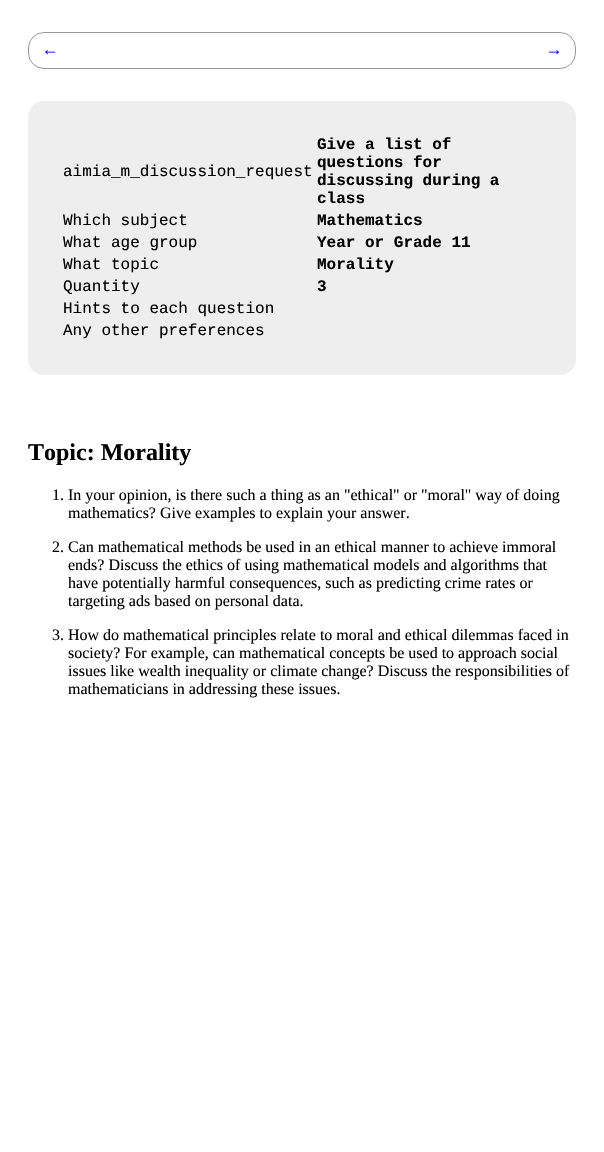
void draw(SkCanvas* canvas) {
    SkPaint paint;
    paint.setAntiAlias(true);
    canvas->clear(0xFFFFFFFF);
    paint.setStyle(SkPaint::kStroke_Style);
    paint.setStrokeWidth(1);
    paint.setColor(0xFF999999);
    canvas->drawRoundRect(SkRect::MakeXYWH(28.5f, 32.5f, 547, 36), 15.5f, 15.5f, paint);
    SkFont font1(fontMgr->matchFamilyStyle("Liberation Mono", SkFontStyle::Normal()), 17);
    font1.setSubpixel(true);
    paint.setStyle(SkPaint::kFill_Style);
    paint.setColor(0xFF0000EE);
    canvas->drawString("←", 45, 55, font1, paint);
    canvas->drawString("→", 549, 55, font1, paint);
    paint.setColor(0xFFEEEEEE);
    canvas->drawRoundRect(SkRect::MakeXYWH(28, 101, 548, 274), 16, 16, paint);
    SkFont font2(fontMgr->matchFamilyStyle("Liberation Mono", SkFontStyle::Normal()), 16);
    font2.setSubpixel(true);
    paint.setColor(0xFF000000);
    canvas->drawString("aimia_m_discussion_request", 63, 176, font2, paint);
    SkFont font3(fontMgr->matchFamilyStyle("Liberation Mono", SkFontStyle::Bold()), 16);
    font3.setSubpixel(true);
    canvas->drawString("Give a list of", 317, 149, font3, paint);
    canvas->drawString("questions for", 317, 167, font3, paint);
    canvas->drawString("discussing during a", 317, 185, font3, paint);
    canvas->drawString("class", 317, 203, font3, paint);
    canvas->drawString("Which subject", 63, 225, font2, paint);
    canvas->drawString("Mathematics", 317, 225, font3, paint);
    canvas->drawString("What age group", 63, 247, font2, paint);
    canvas->drawString("Year or Grade 11", 317, 247, font3, paint);
    canvas->drawString("What topic", 63, 269, font2, paint);
    canvas->drawString("Morality", 317, 269, font3, paint);
    canvas->drawString("Quantity", 63, 291, font2, paint);
    canvas->drawString("3", 317, 291, font3, paint);
    canvas->drawString("Hints to each question", 63, 313, font2, paint);
    canvas->drawString("Any other preferences", 63, 335, font2, paint);
    SkFont font4(fontMgr->matchFamilyStyle("Liberation Serif", SkFontStyle::Bold()), 24);
    font4.setSubpixel(true);
    canvas->drawString("Topic: Morality", 28, 460, font4, paint);
    SkFont font5(fontMgr->matchFamilyStyle("Liberation Serif", SkFontStyle::Normal()), 16);
    font5.setSubpixel(true);
    canvas->drawString("1. In your opinion, is there such a thing as an \"ethical\" or \"moral\" way of doing", 52, 500, font5, paint);
    canvas->drawString("mathematics? Give examples to explain your answer.", 68, 518, font5, paint);
    canvas->drawString("2. Can mathematical methods be used in an ethical manner to achieve immoral", 52, 552, font5, paint);
    canvas->drawString("ends? Discuss the ethics of using mathematical models and algorithms that", 68, 570, font5, paint);
    canvas->drawString("have potentially harmful consequences, such as predicting crime rates or", 68, 588, font5, paint);
    canvas->drawString("targeting ads based on personal data.", 68, 606, font5, paint);
    canvas->drawString("3. How do mathematical principles relate to moral and ethical dilemmas faced in", 52, 640, font5, paint);
    canvas->drawString("society? For example, can mathematical concepts be used to approach social", 68, 658, font5, paint);
    canvas->drawString("issues like wealth inequality or climate change? Discuss the responsibilities of", 68, 676, font5, paint);
    canvas->drawString("mathematicians in addressing these issues.", 68, 694, font5, paint);
}
